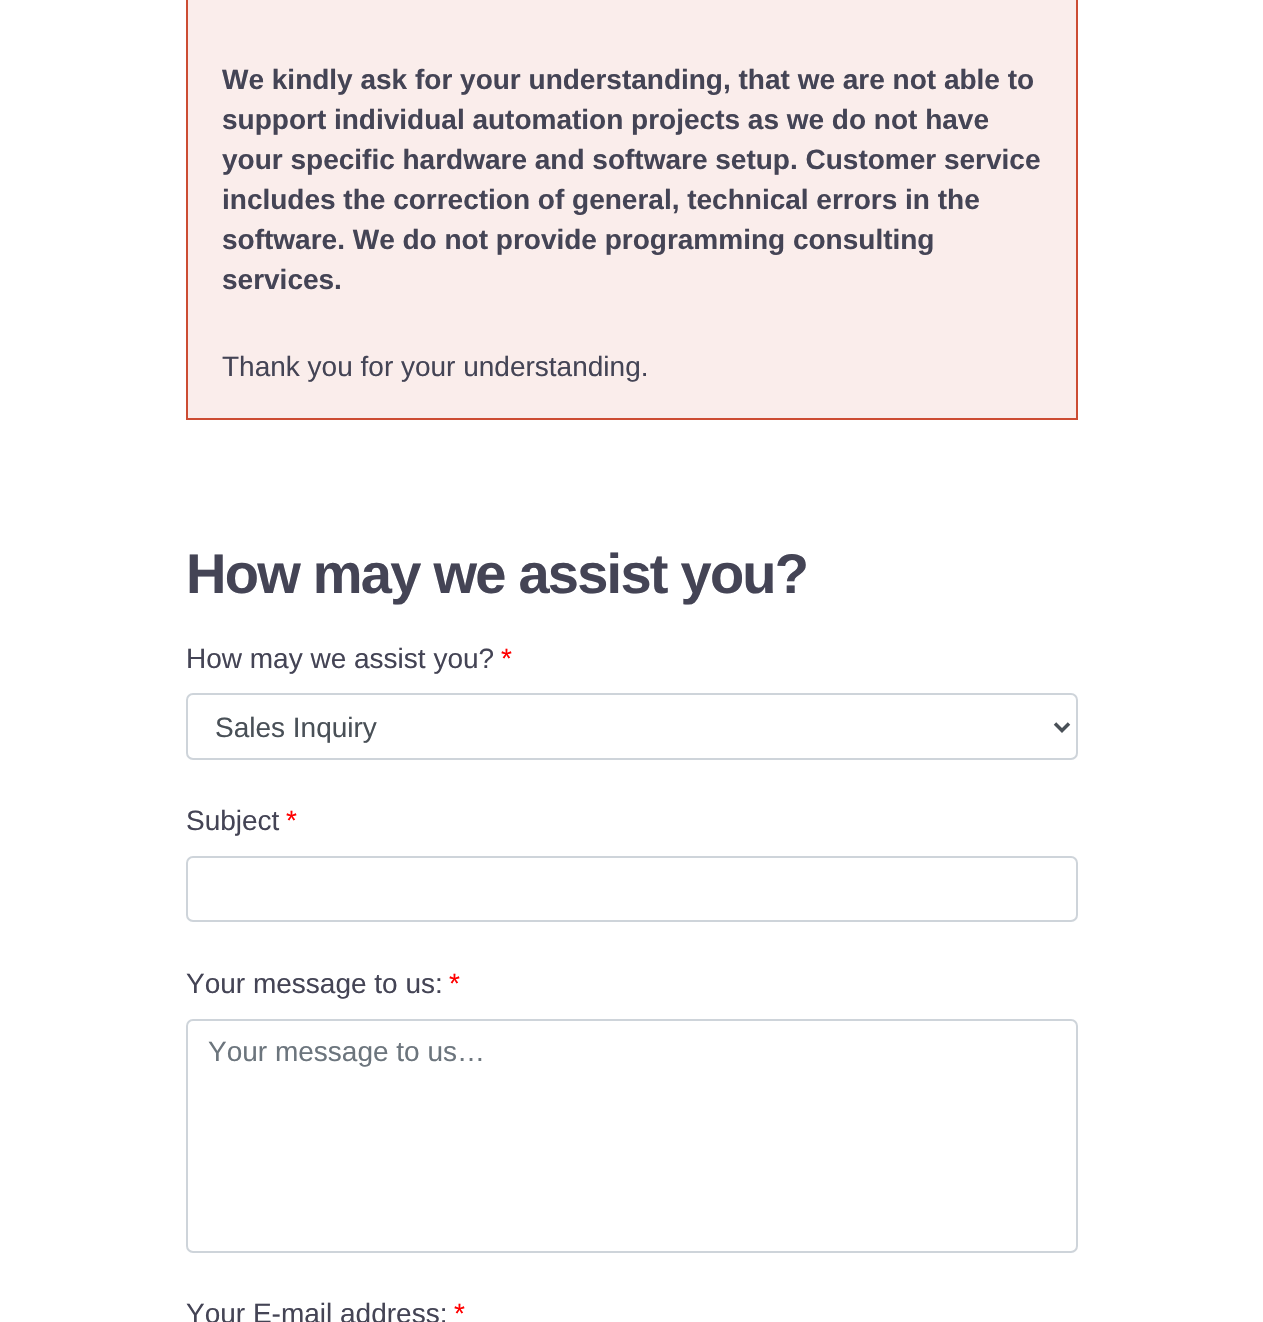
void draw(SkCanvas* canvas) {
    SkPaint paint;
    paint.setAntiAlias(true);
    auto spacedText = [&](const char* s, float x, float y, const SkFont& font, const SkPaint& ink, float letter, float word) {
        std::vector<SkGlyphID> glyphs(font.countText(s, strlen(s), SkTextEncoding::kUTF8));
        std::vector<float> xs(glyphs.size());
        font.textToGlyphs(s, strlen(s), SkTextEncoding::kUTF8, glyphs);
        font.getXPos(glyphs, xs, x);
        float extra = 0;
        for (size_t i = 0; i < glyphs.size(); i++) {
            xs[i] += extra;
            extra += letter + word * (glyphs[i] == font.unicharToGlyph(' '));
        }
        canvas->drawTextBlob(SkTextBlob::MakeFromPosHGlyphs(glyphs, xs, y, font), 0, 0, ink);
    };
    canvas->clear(0xFFFFFFFF);
    paint.setColor(0xFFFAEDEB);
    canvas->drawRect(SkRect::MakeXYWH(187, -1, 890, 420), paint);
    paint.setStyle(SkPaint::kStroke_Style);
    paint.setStrokeWidth(2);
    paint.setColor(0xFFCC4C33);
    canvas->drawRect(SkRect::MakeXYWH(187, -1, 890, 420), paint);
    SkFont font1(fontMgr->matchFamilyStyle("Liberation Sans", SkFontStyle::Bold()), 28);
    font1.setSubpixel(true);
    paint.setStyle(SkPaint::kFill_Style);
    paint.setColor(0xFF444455);
    canvas->drawString("We kindly ask for your understanding, that we are not able to", 222, 89, font1, paint);
    canvas->drawString("support individual automation projects as we do not have", 222, 129, font1, paint);
    canvas->drawString("your specific hardware and software setup. Customer service", 222, 169, font1, paint);
    canvas->drawString("includes the correction of general, technical errors in the", 222, 209, font1, paint);
    canvas->drawString("software. We do not provide programming consulting", 222, 249, font1, paint);
    canvas->drawString("services.", 222, 289, font1, paint);
    SkFont font2(fontMgr->matchFamilyStyle("Liberation Sans", SkFontStyle::Normal()), 28);
    font2.setSubpixel(true);
    canvas->drawString("Thank you for your understanding.", 222, 376, font2, paint);
    SkFont font3(fontMgr->matchFamilyStyle("Liberation Sans", SkFontStyle::Bold()), 56);
    font3.setSubpixel(true);
    spacedText("How may we assist you?", 186, 593, font3, paint, -1.75f, 0);
    canvas->drawString("How may we assist you?", 186, 668, font2, paint);
    paint.setColor(0xFFFF0000);
    canvas->drawString("*", 501, 668, font2, paint);
    paint.setStyle(SkPaint::kStroke_Style);
    paint.setColor(0xFFCED4DA);
    canvas->drawRoundRect(SkRect::MakeXYWH(187, 694, 890, 65), 6, 6, paint);
    paint.setStrokeWidth(3.5f);
    paint.setColor(0xFF495057);
    canvas->drawPath(SkPathBuilder().moveTo(1055, 723.5f).lineTo(1062, 730.5f).lineTo(1069, 723.5f).detach(), paint);
    paint.setStyle(SkPaint::kFill_Style);
    canvas->drawString("Sales Inquiry", 215, 737, font2, paint);
    paint.setColor(0xFF444455);
    canvas->drawString("Subject", 186, 830, font2, paint);
    paint.setColor(0xFFFF0000);
    canvas->drawString("*", 286, 830, font2, paint);
    paint.setStyle(SkPaint::kStroke_Style);
    paint.setStrokeWidth(2);
    paint.setColor(0xFFCED4DA);
    canvas->drawRoundRect(SkRect::MakeXYWH(187, 857, 890, 64), 6, 6, paint);
    paint.setStyle(SkPaint::kFill_Style);
    paint.setColor(0xFF444455);
    canvas->drawString("Your message to us:", 186, 993, font2, paint);
    paint.setColor(0xFFFF0000);
    canvas->drawString("*", 449, 993, font2, paint);
    paint.setStyle(SkPaint::kStroke_Style);
    paint.setColor(0xFFCED4DA);
    canvas->drawRoundRect(SkRect::MakeXYWH(187, 1020, 890, 232), 6, 6, paint);
    paint.setStyle(SkPaint::kFill_Style);
    paint.setColor(0xFF6C757D);
    canvas->drawString("Your message to us…", 208, 1061, font2, paint);
    paint.setColor(0xFF444455);
    canvas->drawString("Your E-mail address:", 186, 1323, font2, paint);
    paint.setColor(0xFFFF0000);
    canvas->drawString("*", 454, 1323, font2, paint);
}
